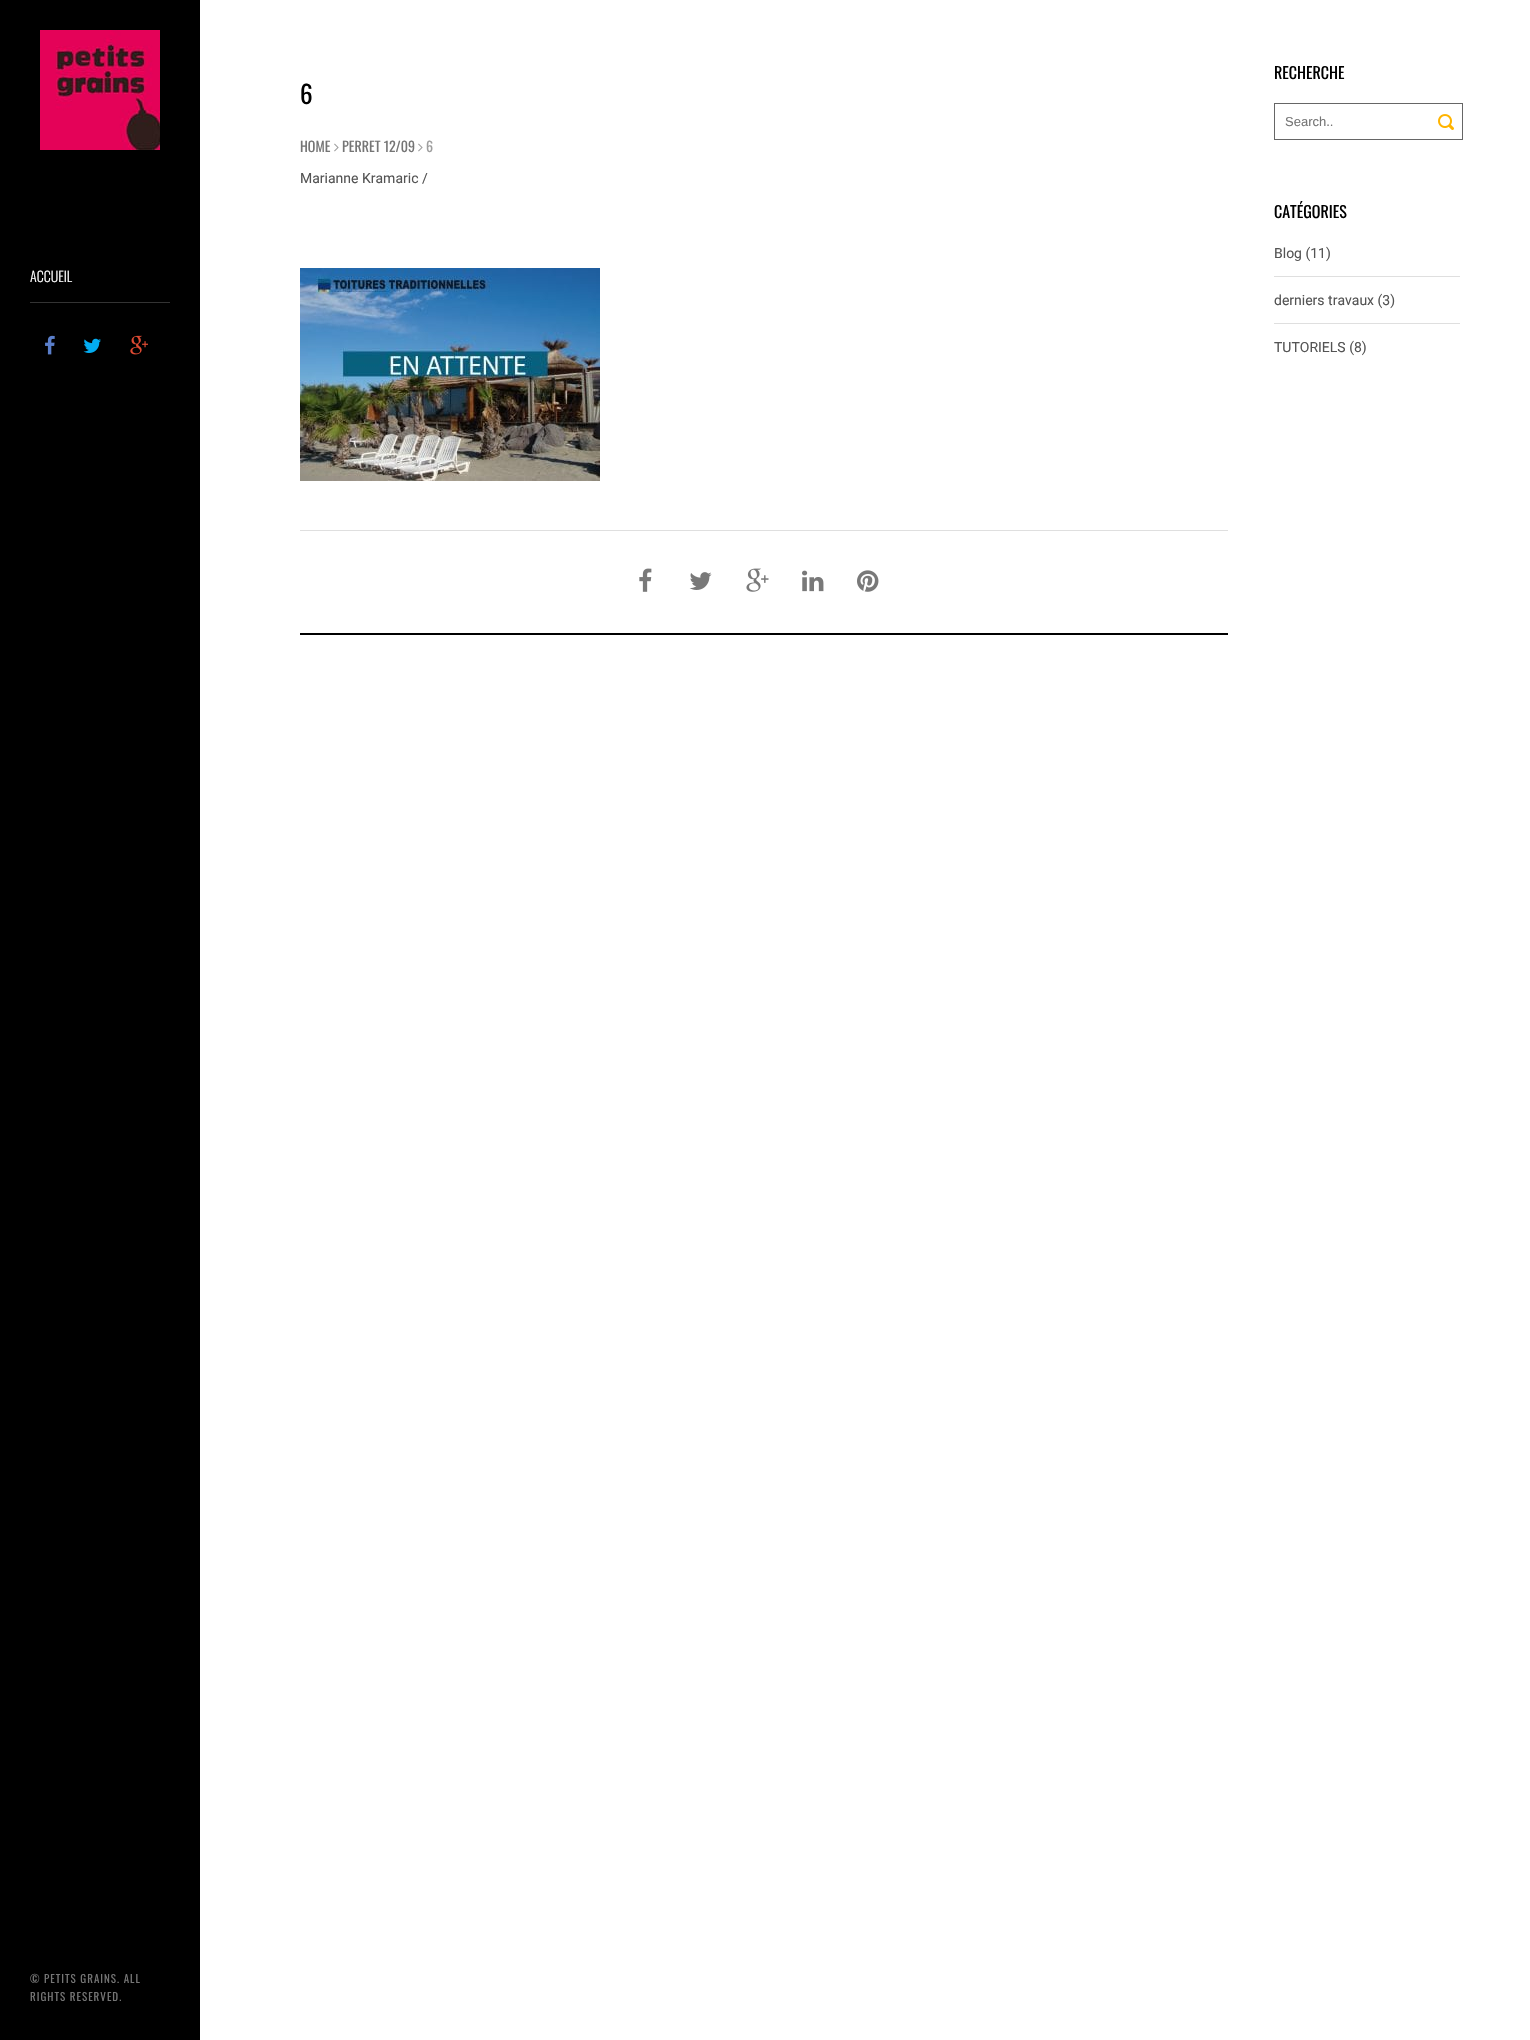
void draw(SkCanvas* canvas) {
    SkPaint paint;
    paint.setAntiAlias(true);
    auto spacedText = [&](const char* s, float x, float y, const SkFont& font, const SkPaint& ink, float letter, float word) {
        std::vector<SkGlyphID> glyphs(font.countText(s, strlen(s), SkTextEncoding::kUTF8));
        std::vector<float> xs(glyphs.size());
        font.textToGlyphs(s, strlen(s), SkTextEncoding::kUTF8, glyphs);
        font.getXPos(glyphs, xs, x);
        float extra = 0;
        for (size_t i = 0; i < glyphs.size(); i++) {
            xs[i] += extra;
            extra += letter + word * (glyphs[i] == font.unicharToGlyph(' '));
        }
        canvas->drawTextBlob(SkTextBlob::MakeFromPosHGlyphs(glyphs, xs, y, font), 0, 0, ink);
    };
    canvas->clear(0xFFFFFFFF);
    SkFont font1(fontMgr->matchFamilyStyle("Oswald", SkFontStyle::Normal()), 25);
    font1.setSubpixel(true);
    paint.setColor(0xFF000000);
    canvas->drawString("6", 300, 104, font1, paint);
    SkFont font2(fontMgr->matchFamilyStyle("Oswald", SkFontStyle::Normal()), 14);
    font2.setSubpixel(true);
    paint.setColor(0xFF757575);
    canvas->drawString("HOME", 300, 152, font2, paint);
    canvas->drawImageRect(SkImages::DeferredFromEncodedData(SkData::MakeFromFileName("img1.png")), SkRect::MakeXYWH(334, 143, 5, 9), SkSamplingOptions());
    canvas->drawString("PERRET 12/09", 342, 152, font2, paint);
    canvas->drawImageRect(SkImages::DeferredFromEncodedData(SkData::MakeFromFileName("img1.png")), SkRect::MakeXYWH(418, 143, 5, 9), SkSamplingOptions());
    paint.setColor(0xFF9E9E9E);
    canvas->drawString("6", 426, 152, font2, paint);
    SkFont font3(fontMgr->matchFamilyStyle("Roboto", SkFontStyle::Normal()), 14);
    font3.setSubpixel(true);
    paint.setColor(0xFF545454);
    canvas->drawString("Marianne Kramaric /", 300, 183, font3, paint);
    canvas->drawImageRect(SkImages::DeferredFromEncodedData(SkData::MakeFromFileName("img2.png")), SkRect::MakeXYWH(300, 268, 300, 213), SkSamplingOptions());
    paint.setColor(0xFFDFDFDF);
    canvas->drawRect(SkRect::MakeXYWH(300, 530, 928, 1), paint);
    paint.setColor(0xFF000000);
    canvas->drawRect(SkRect::MakeXYWH(300, 633, 928, 2), paint);
    canvas->drawImageRect(SkImages::DeferredFromEncodedData(SkData::MakeFromFileName("img3.png")), SkRect::MakeXYWH(639, 568, 13, 24), SkSamplingOptions());
    canvas->drawImageRect(SkImages::DeferredFromEncodedData(SkData::MakeFromFileName("img4.png")), SkRect::MakeXYWH(689, 572, 23, 18), SkSamplingOptions());
    canvas->drawImageRect(SkImages::DeferredFromEncodedData(SkData::MakeFromFileName("img5.png")), SkRect::MakeXYWH(746, 568, 23, 24), SkSamplingOptions());
    canvas->drawImageRect(SkImages::DeferredFromEncodedData(SkData::MakeFromFileName("img6.png")), SkRect::MakeXYWH(802, 570, 22, 22), SkSamplingOptions());
    canvas->drawImageRect(SkImages::DeferredFromEncodedData(SkData::MakeFromFileName("img7.png")), SkRect::MakeXYWH(857, 570, 22, 22), SkSamplingOptions());
    SkFont font4(fontMgr->matchFamilyStyle("Oswald", SkFontStyle::Normal()), 16);
    font4.setSubpixel(true);
    canvas->drawString("RECHERCHE", 1274, 79, font4, paint);
    canvas->drawImageRect(SkImages::DeferredFromEncodedData(SkData::MakeFromFileName("img8.png")), SkRect::MakeXYWH(1438, 114, 16, 16), SkSamplingOptions());
    paint.setStyle(SkPaint::kStroke_Style);
    paint.setStrokeWidth(1);
    paint.setColor(0xFF666666);
    canvas->drawRect(SkRect::MakeXYWH(1274.5f, 103.5f, 188, 36), paint);
    SkFont font5(fontMgr->matchFamilyStyle("Liberation Sans", SkFontStyle::Normal()), 13);
    font5.setSubpixel(true);
    paint.setStyle(SkPaint::kFill_Style);
    paint.setColor(0xFF757575);
    canvas->drawString("Search..", 1285, 126, font5, paint);
    paint.setColor(0xFF000000);
    canvas->drawString("CATÉGORIES", 1274, 218, font4, paint);
    paint.setColor(0xFFDFDFDF);
    canvas->drawRect(SkRect::MakeXYWH(1274, 276, 186, 1), paint);
    paint.setColor(0xFF545454);
    canvas->drawString("Blog (11)", 1274, 258, font3, paint);
    paint.setColor(0xFFDFDFDF);
    canvas->drawRect(SkRect::MakeXYWH(1274, 323, 186, 1), paint);
    paint.setColor(0xFF545454);
    canvas->drawString("derniers travaux (3)", 1274, 305, font3, paint);
    canvas->drawString("TUTORIELS (8)", 1274, 352, font3, paint);
    paint.setColor(0xFF000000);
    canvas->drawRect(SkRect::MakeXYWH(0, 0, 200, 2040), paint);
    canvas->drawImageRect(SkImages::DeferredFromEncodedData(SkData::MakeFromFileName("img9.png")), SkRect::MakeXYWH(40, 30, 120, 120), SkSamplingOptions());
    paint.setColor(0xFF333333);
    canvas->drawRect(SkRect::MakeXYWH(30, 302, 140, 1), paint);
    SkFont font6(fontMgr->matchFamilyStyle("Oswald", SkFontStyle(300, SkFontStyle::kNormal_Width, SkFontStyle::kUpright_Slant)), 14);
    font6.setSubpixel(true);
    paint.setColor(0xFFFFFFFF);
    canvas->drawString("ACCUEIL", 30, 282, font6, paint);
    canvas->drawImageRect(SkImages::DeferredFromEncodedData(SkData::MakeFromFileName("img10.png")), SkRect::MakeXYWH(45, 335, 10, 20), SkSamplingOptions());
    canvas->drawImageRect(SkImages::DeferredFromEncodedData(SkData::MakeFromFileName("img11.png")), SkRect::MakeXYWH(83, 338, 18, 15), SkSamplingOptions());
    canvas->drawImageRect(SkImages::DeferredFromEncodedData(SkData::MakeFromFileName("img12.png")), SkRect::MakeXYWH(130, 335, 18, 20), SkSamplingOptions());
    SkFont font7(fontMgr->matchFamilyStyle("Oswald", SkFontStyle::Normal()), 11);
    font7.setSubpixel(true);
    paint.setColor(0xFF757575);
    spacedText("© PETITS GRAINS. ALL", 30, 1983, font7, paint, 1, 0);
    spacedText("RIGHTS RESERVED.", 30, 2001, font7, paint, 1, 0);
}
